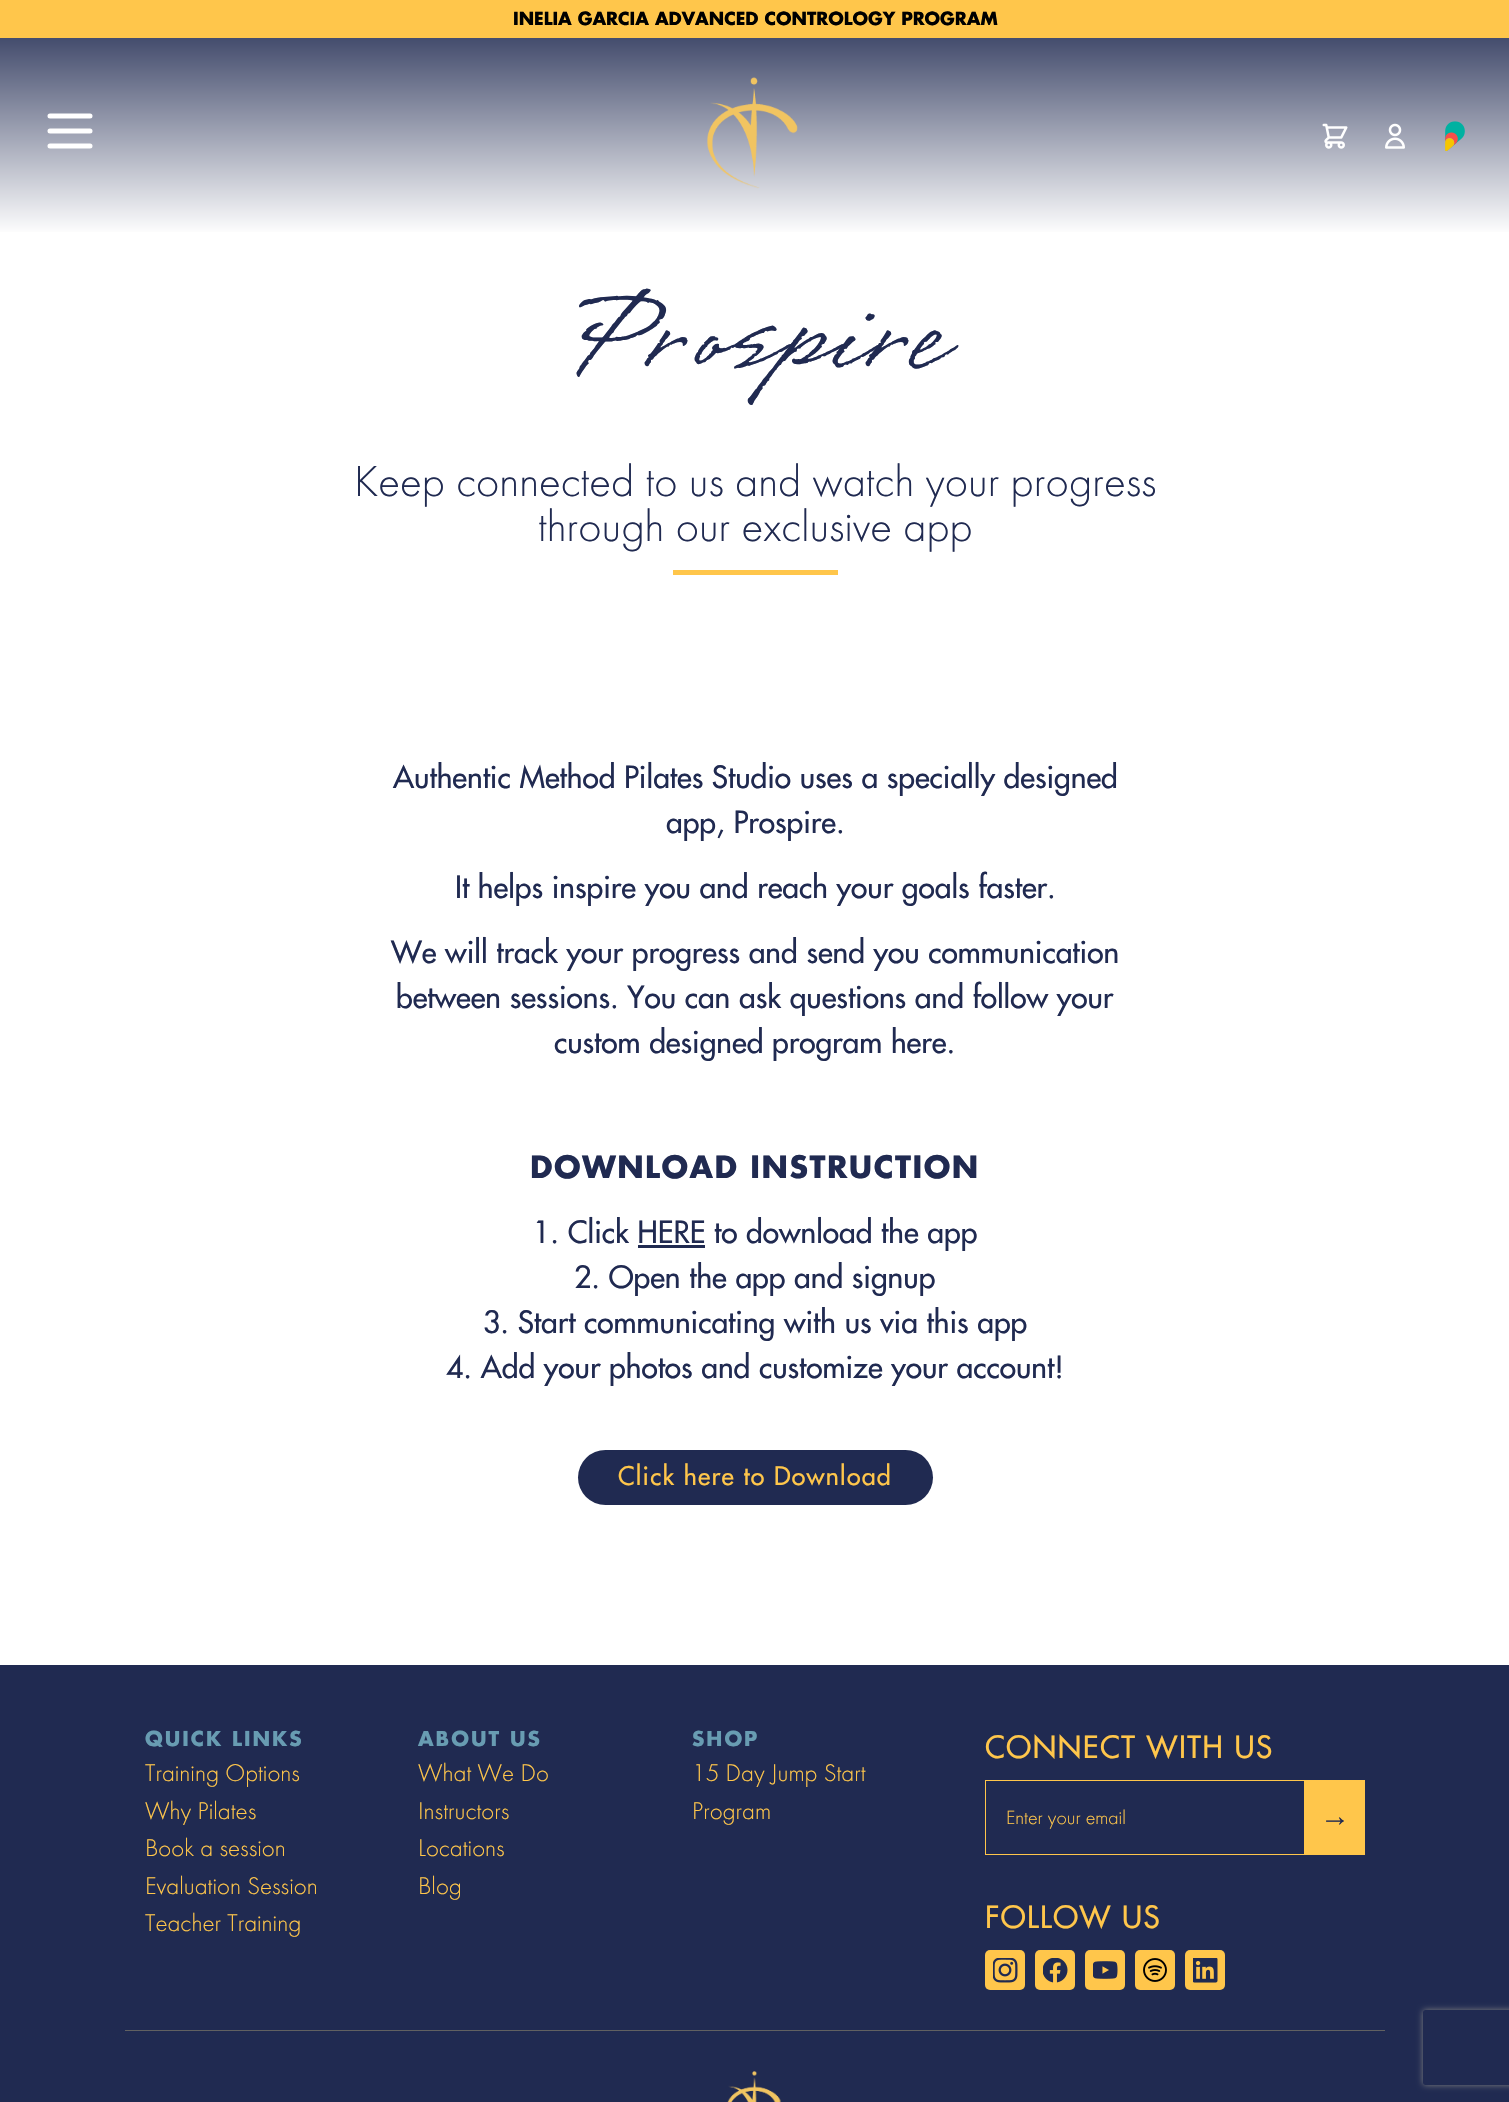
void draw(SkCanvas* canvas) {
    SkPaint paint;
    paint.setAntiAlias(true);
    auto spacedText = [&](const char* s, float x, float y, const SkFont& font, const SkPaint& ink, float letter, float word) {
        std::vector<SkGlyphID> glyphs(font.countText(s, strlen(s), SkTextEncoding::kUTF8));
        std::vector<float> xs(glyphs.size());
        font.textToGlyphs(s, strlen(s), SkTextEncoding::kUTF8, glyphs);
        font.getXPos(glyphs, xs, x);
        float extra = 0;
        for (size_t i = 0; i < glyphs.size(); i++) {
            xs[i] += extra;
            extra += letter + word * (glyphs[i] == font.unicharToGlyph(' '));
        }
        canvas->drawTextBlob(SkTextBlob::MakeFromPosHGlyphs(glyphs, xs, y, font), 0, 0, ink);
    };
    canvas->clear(0xFFFFFFFF);
    paint.setColor(0xFFFFC64B);
    canvas->drawRect(SkRect::MakeXYWH(0, 0, 1509, 38), paint);
    SkFont font1(fontMgr->matchFamilyStyle("Futura", SkFontStyle::Bold()), 17.5f);
    font1.setSubpixel(true);
    paint.setColor(0xFF000000);
    canvas->drawString("INELIA GARCIA ADVANCED CONTROLOGY PROGRAM", 513, 25, font1, paint);
    {
        const SkColor colors[] = {0xFF202A51, 0xFFFFFFFF};
        const float stops[] = {0, 1};
        const SkPoint ends[] = {{755, 0}, {755, 235}};
        paint.setShader(SkGradientShader::MakeLinear(ends, colors, stops, 2, SkTileMode::kClamp));
        paint.setAlpha(255);
    }
    canvas->drawRect(SkRect::MakeXYWH(0, 38, 1509, 194), paint);
    paint.setStyle(SkPaint::kStroke_Style);
    paint.setStrokeWidth(5);
    paint.setStrokeCap(SkPaint::kRound_Cap);
    paint.setStrokeJoin(SkPaint::kRound_Join);
    paint.setShader(nullptr);
    paint.setColor(0xFFFFFFFF);
    canvas->drawPath(SkPathBuilder().moveTo(50, 116).lineTo(90, 116).moveTo(50, 131).lineTo(90, 131).moveTo(50, 146).lineTo(90, 146).detach(), paint);
    canvas->drawImageRect(SkImages::DeferredFromEncodedData(SkData::MakeFromFileName("img1.png")), SkRect::MakeXYWH(707, 77, 91, 112), SkSamplingOptions());
    canvas->drawImageRect(SkImages::DeferredFromEncodedData(SkData::MakeFromFileName("img2.png")), SkRect::MakeXYWH(1322, 123, 26, 26), SkSamplingOptions());
    canvas->drawImageRect(SkImages::DeferredFromEncodedData(SkData::MakeFromFileName("img3.png")), SkRect::MakeXYWH(1385, 123, 20, 26), SkSamplingOptions());
    canvas->drawImageRect(SkImages::DeferredFromEncodedData(SkData::MakeFromFileName("img4.png")), SkRect::MakeXYWH(1445, 121, 20, 30), SkSamplingOptions());
    SkFont font2(fontMgr->matchFamilyStyle("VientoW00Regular", SkFontStyle::Normal()), 100);
    font2.setSubpixel(true);
    paint.setStyle(SkPaint::kFill_Style);
    paint.setColor(0xFF202A51);
    canvas->drawString("Prospire", 565, 365, font2, paint);
    SkFont font3(fontMgr->matchFamilyStyle("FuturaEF", SkFontStyle(300, SkFontStyle::kNormal_Width, SkFontStyle::kUpright_Slant)), 45);
    font3.setSubpixel(true);
    canvas->drawString("Keep connected to us and watch your progress", 354, 496, font3, paint);
    canvas->drawString("through our exclusive app", 538, 541, font3, paint);
    paint.setColor(0xFFFFC64B);
    canvas->drawRect(SkRect::MakeXYWH(673, 570, 165, 5), paint);
    SkFont font4(fontMgr->matchFamilyStyle("Futura", SkFontStyle(500, SkFontStyle::kNormal_Width, SkFontStyle::kUpright_Slant)), 30);
    font4.setSubpixel(true);
    paint.setColor(0xFF202A51);
    canvas->drawString("Authentic Method Pilates Studio uses a specially designed", 393, 788, font4, paint);
    canvas->drawString("app, Prospire.", 666, 833, font4, paint);
    canvas->drawString("It helps inspire you and reach your goals faster.", 455, 898, font4, paint);
    canvas->drawString("We will track your progress and send you communication", 391, 963, font4, paint);
    canvas->drawString("between sessions. You can ask questions and follow your", 396, 1008, font4, paint);
    canvas->drawString("custom designed program here.", 554, 1053, font4, paint);
    SkFont font5(fontMgr->matchFamilyStyle("Futura", SkFontStyle::Bold()), 30);
    font5.setSubpixel(true);
    spacedText("DOWNLOAD INSTRUCTION", 530, 1178, font5, paint, 1.5f, 0);
    canvas->drawString("1. Click HERE to download the app", 533, 1243, font4, paint);
    canvas->drawRect(SkRect::MakeXYWH(638, 1245, 67, 3), paint);
    canvas->drawString("2. Open the app and signup", 574, 1288, font4, paint);
    canvas->drawString("3. Start communicating with us via this app", 483, 1333, font4, paint);
    canvas->drawString("4. Add your photos and customize your account!", 446, 1378, font4, paint);
    canvas->drawRoundRect(SkRect::MakeXYWH(578, 1450, 355, 55), 27.5f, 27.5f, paint);
    SkFont font6(fontMgr->matchFamilyStyle("Futura", SkFontStyle(500, SkFontStyle::kNormal_Width, SkFontStyle::kUpright_Slant)), 25);
    font6.setSubpixel(true);
    paint.setColor(0xFFFFC64B);
    spacedText("Click here to Download", 618, 1485, font6, paint, 1.25f, 0);
    paint.setColor(0xFF202A51);
    canvas->drawRect(SkRect::MakeXYWH(0, 1665, 1509, 437), paint);
    SkFont font7(fontMgr->matchFamilyStyle("Futura", SkFontStyle::Bold()), 20);
    font7.setSubpixel(true);
    paint.setColor(0xFF689CB2);
    spacedText("QUICK LINKS", 145, 1746, font7, paint, 2, 0);
    SkFont font8(fontMgr->matchFamilyStyle("FuturaEF", SkFontStyle(300, SkFontStyle::kNormal_Width, SkFontStyle::kUpright_Slant)), 25);
    font8.setSubpixel(true);
    paint.setColor(0xFFFFC64B);
    canvas->drawString("Training Options", 145, 1781, font8, paint);
    canvas->drawString("Why Pilates", 145, 1819, font8, paint);
    canvas->drawString("Book a session", 145, 1856, font8, paint);
    canvas->drawString("Evaluation Session", 145, 1894, font8, paint);
    canvas->drawString("Teacher Training", 145, 1931, font8, paint);
    paint.setColor(0xFF689CB2);
    spacedText("ABOUT US", 418, 1746, font7, paint, 2, 0);
    paint.setColor(0xFFFFC64B);
    canvas->drawString("What We Do", 418, 1781, font8, paint);
    canvas->drawString("Instructors", 418, 1819, font8, paint);
    canvas->drawString("Locations", 418, 1856, font8, paint);
    canvas->drawString("Blog", 418, 1894, font8, paint);
    paint.setColor(0xFF689CB2);
    spacedText("SHOP", 692, 1746, font7, paint, 2, 0);
    paint.setColor(0xFFFFC64B);
    canvas->drawString("15 Day Jump Start", 692, 1781, font8, paint);
    canvas->drawString("Program", 692, 1819, font8, paint);
    spacedText("CONNECT WITH US", 985, 1758, font4, paint, 1.5f, 0);
    paint.setStyle(SkPaint::kStroke_Style);
    paint.setStrokeWidth(1);
    paint.setStrokeCap(SkPaint::kButt_Cap);
    paint.setStrokeJoin(SkPaint::kMiter_Join);
    canvas->drawRect(SkRect::MakeXYWH(985.5f, 1780.5f, 319, 74), paint);
    SkFont font9(fontMgr->matchFamilyStyle("FuturaEF", SkFontStyle(300, SkFontStyle::kNormal_Width, SkFontStyle::kUpright_Slant)), 20);
    font9.setSubpixel(true);
    paint.setStyle(SkPaint::kFill_Style);
    canvas->drawString("Enter your email", 1006, 1824, font9, paint);
    canvas->drawRect(SkRect::MakeXYWH(1305, 1780, 60, 75), paint);
    SkFont font10(fontMgr->matchFamilyStyle("Liberation Sans", SkFontStyle::Normal()), 30);
    font10.setSubpixel(true);
    paint.setColor(0xFF202A51);
    canvas->drawString("→", 1320, 1826, font10, paint);
    paint.setColor(0xFFFFC64B);
    spacedText("FOLLOW US", 985, 1928, font4, paint, 1.5f, 0);
    canvas->drawRoundRect(SkRect::MakeXYWH(985, 1950, 40, 40), 5, 5, paint);
    canvas->drawImageRect(SkImages::DeferredFromEncodedData(SkData::MakeFromFileName("img5.png")), SkRect::MakeXYWH(993, 1958, 25, 25), SkSamplingOptions());
    canvas->drawRoundRect(SkRect::MakeXYWH(1035, 1950, 40, 40), 5, 5, paint);
    canvas->drawImageRect(SkImages::DeferredFromEncodedData(SkData::MakeFromFileName("img6.png")), SkRect::MakeXYWH(1043, 1958, 25, 25), SkSamplingOptions());
    canvas->drawRoundRect(SkRect::MakeXYWH(1085, 1950, 40, 40), 5, 5, paint);
    canvas->drawImageRect(SkImages::DeferredFromEncodedData(SkData::MakeFromFileName("img7.png")), SkRect::MakeXYWH(1093, 1961, 25, 18), SkSamplingOptions());
    canvas->drawRoundRect(SkRect::MakeXYWH(1135, 1950, 40, 40), 5, 5, paint);
    canvas->drawImageRect(SkImages::DeferredFromEncodedData(SkData::MakeFromFileName("img8.png")), SkRect::MakeXYWH(1143, 1958, 24, 24), SkSamplingOptions());
    canvas->drawRoundRect(SkRect::MakeXYWH(1185, 1950, 40, 40), 5, 5, paint);
    canvas->drawImageRect(SkImages::DeferredFromEncodedData(SkData::MakeFromFileName("img9.png")), SkRect::MakeXYWH(1193, 1958, 25, 25), SkSamplingOptions());
    paint.setColor(0xFF616161);
    canvas->drawRect(SkRect::MakeXYWH(125, 2030, 1260, 1), paint);
    canvas->drawImageRect(SkImages::DeferredFromEncodedData(SkData::MakeFromFileName("img10.png")), SkRect::MakeXYWH(727, 2071, 54, 31), SkSamplingOptions());
    canvas->save();
    canvas->clipPath(SkPathBuilder(SkPathFillType::kEvenOdd).moveTo(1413, 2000).lineTo(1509, 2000).lineTo(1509, 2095).lineTo(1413, 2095).close().moveTo(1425.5f, 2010).lineTo(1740.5f, 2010).cubicTo(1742, 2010, 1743, 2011, 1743, 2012.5f).lineTo(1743, 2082.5f).cubicTo(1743, 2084, 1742, 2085, 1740.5f, 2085).lineTo(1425.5f, 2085).cubicTo(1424, 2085, 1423, 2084, 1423, 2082.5f).lineTo(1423, 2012.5f).cubicTo(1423, 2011, 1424, 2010, 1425.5f, 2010).close().detach(), true);
    paint.setColor(0xFF808080);
    paint.setMaskFilter(SkMaskFilter::MakeBlur(kNormal_SkBlurStyle, 3));
    canvas->drawRoundRect(SkRect::MakeXYWH(1423, 2010, 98, 75), 2.5f, 2.5f, paint);
    paint.setMaskFilter(nullptr);
    canvas->restore();
}
